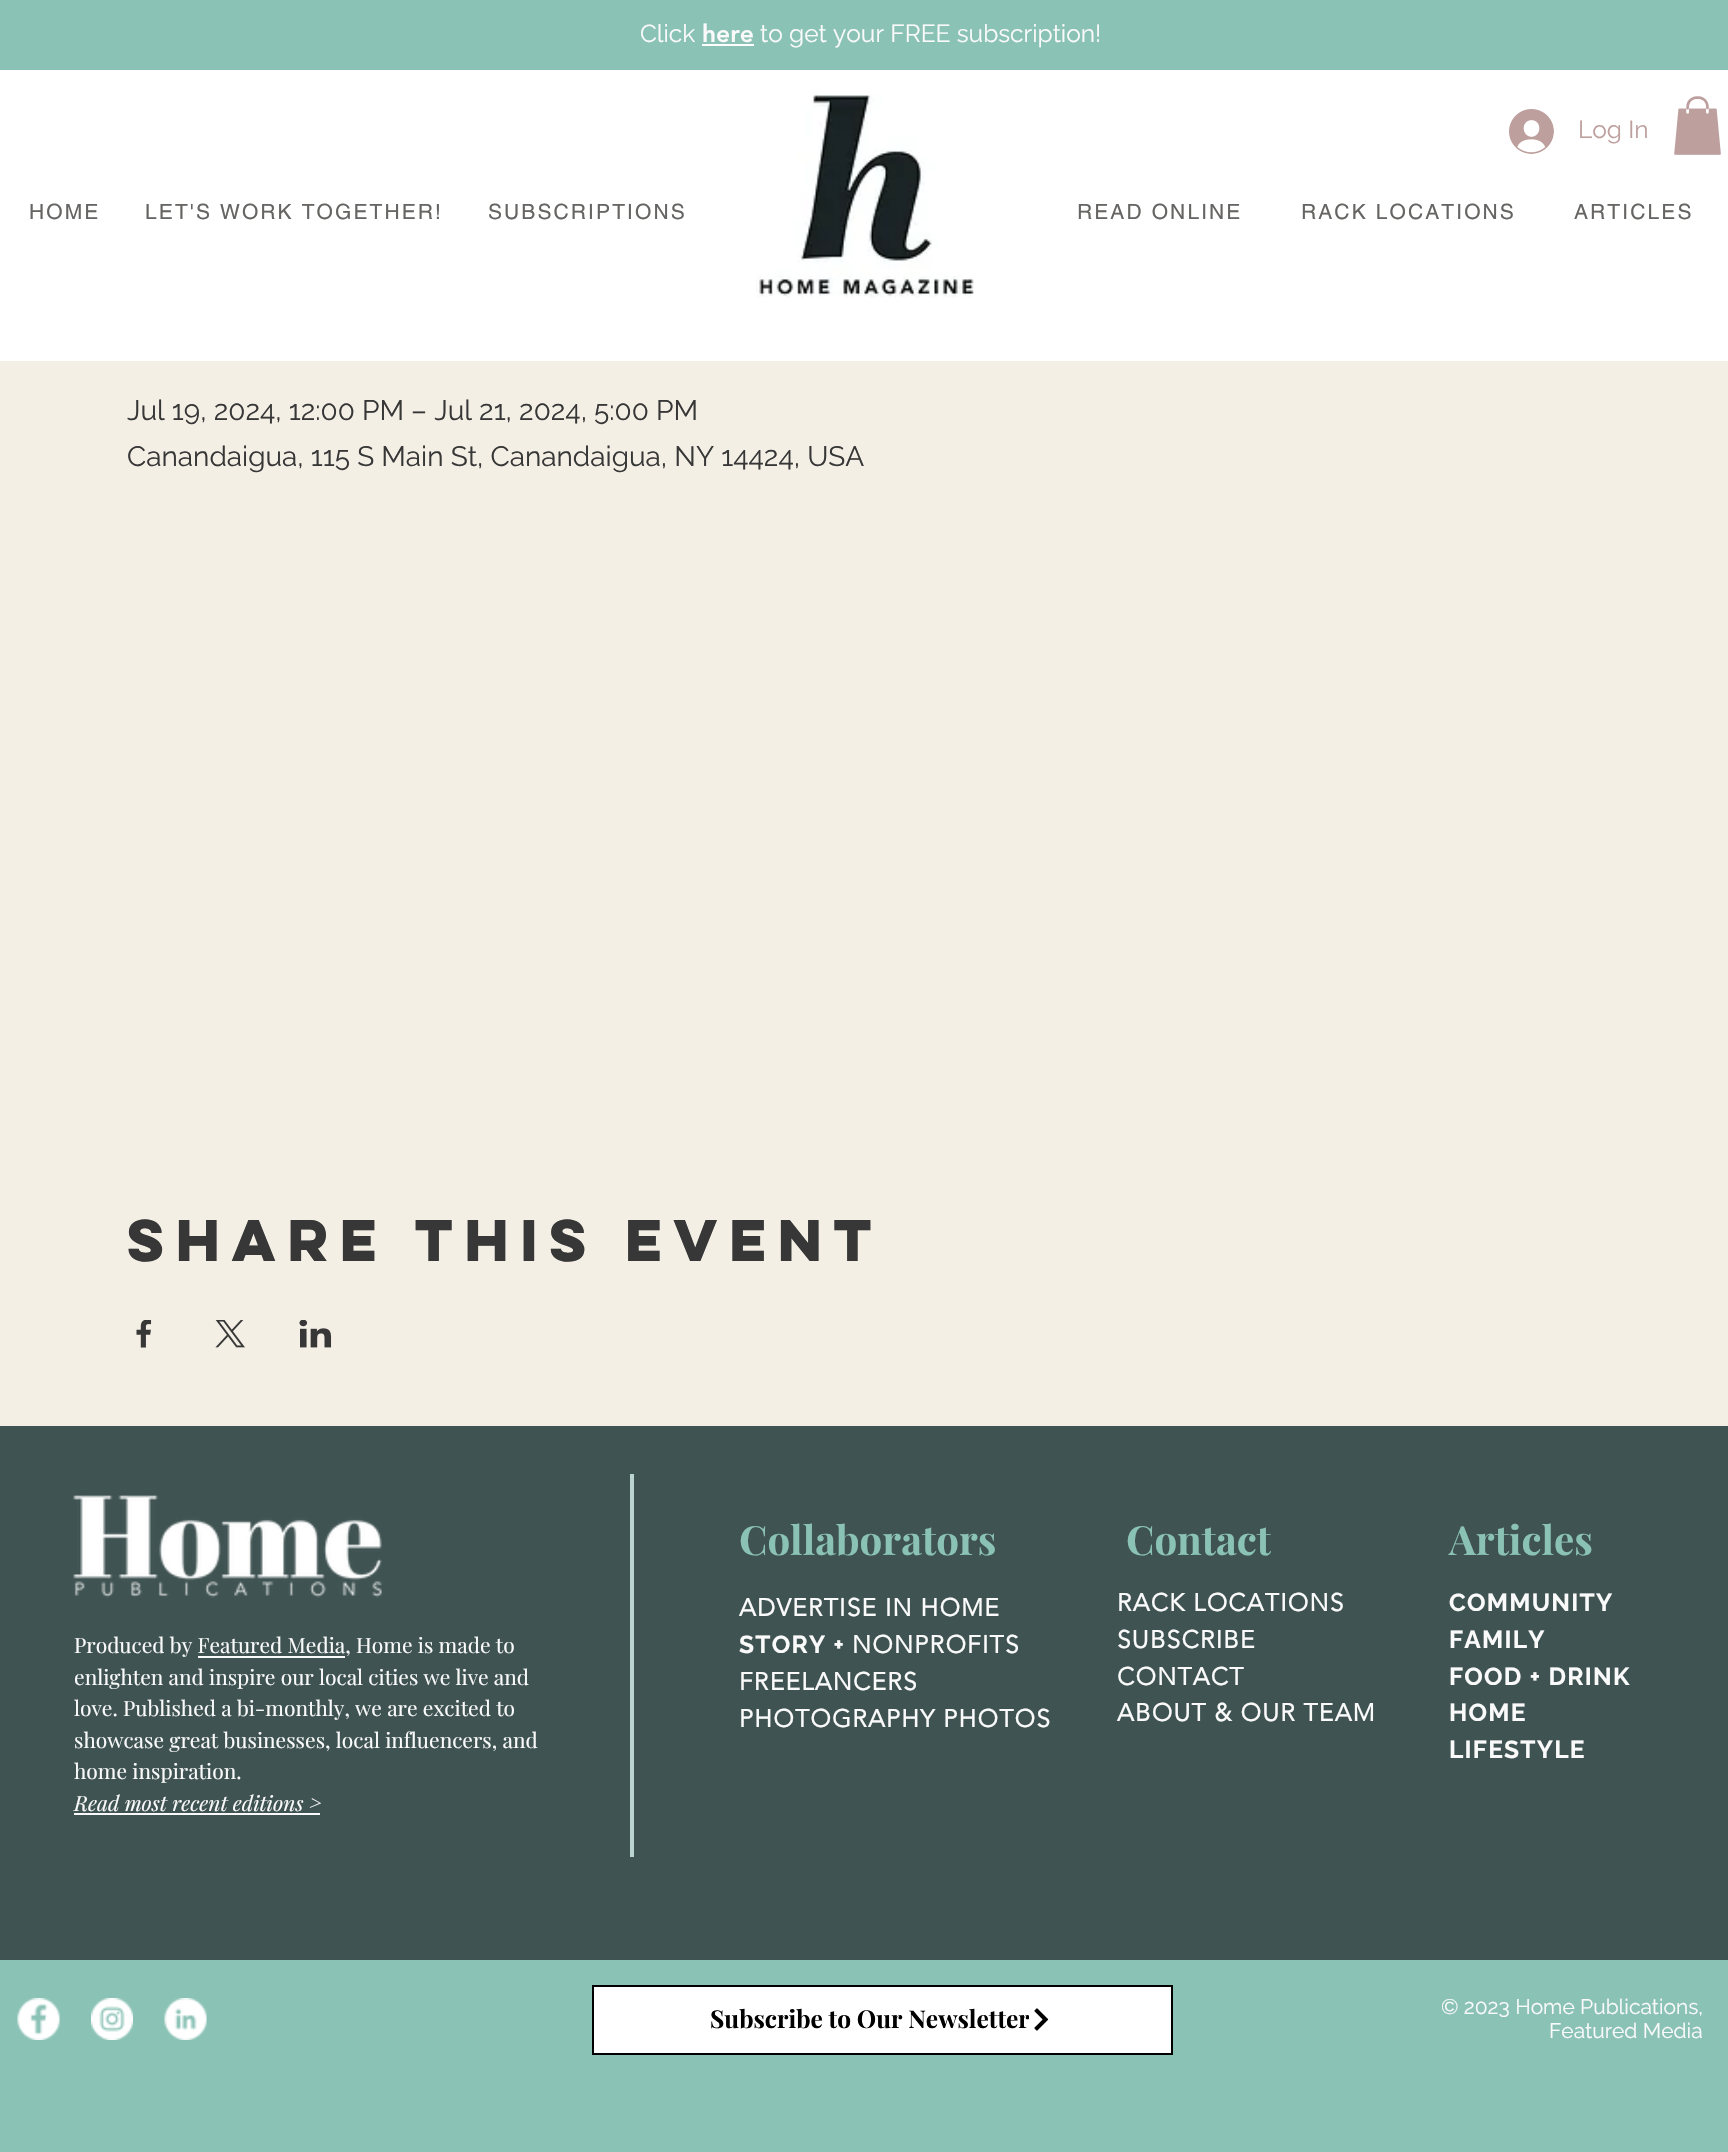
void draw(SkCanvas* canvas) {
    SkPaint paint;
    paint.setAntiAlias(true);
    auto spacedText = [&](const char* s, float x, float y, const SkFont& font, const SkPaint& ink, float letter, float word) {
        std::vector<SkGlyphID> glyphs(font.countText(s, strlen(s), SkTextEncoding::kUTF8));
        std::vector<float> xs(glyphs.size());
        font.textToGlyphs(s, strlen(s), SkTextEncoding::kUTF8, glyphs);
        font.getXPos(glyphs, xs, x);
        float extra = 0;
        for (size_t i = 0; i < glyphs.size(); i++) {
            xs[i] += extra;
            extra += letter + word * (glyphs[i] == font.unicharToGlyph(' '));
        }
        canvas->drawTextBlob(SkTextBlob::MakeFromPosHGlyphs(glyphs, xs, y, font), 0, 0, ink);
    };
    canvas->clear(0xFFF4EFE5);
    paint.setColor(0xFF8BC2B6);
    canvas->drawRect(SkRect::MakeXYWH(0, 0, 1728, 70), paint);
    SkFont font1(fontMgr->matchFamilyStyle("Raleway", SkFontStyle::Normal()), 24.5f);
    font1.setSubpixel(true);
    paint.setColor(0xFFFAFAFA);
    canvas->drawString("Click", 640, 42, font1, paint);
    SkFont font2(fontMgr->matchFamilyStyle("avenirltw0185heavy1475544", SkFontStyle(900, SkFontStyle::kNormal_Width, SkFontStyle::kUpright_Slant)), 24.5f);
    font2.setSubpixel(true);
    canvas->drawString("here", 702, 42, font2, paint);
    paint.setColor(0xFFFFFFFF);
    canvas->drawRect(SkRect::MakeXYWH(702, 44, 52, 2), paint);
    paint.setColor(0xFFFAFAFA);
    canvas->drawString("to get your FREE subscription!", 760, 42, font1, paint);
    paint.setColor(0xFFFFFFFF);
    canvas->drawRect(SkRect::MakeXYWH(0, 70, 1728, 291), paint);
    canvas->drawImageRect(SkImages::DeferredFromEncodedData(SkData::MakeFromFileName("img1.png")), SkRect::MakeXYWH(756, 94, 218, 204), SkSamplingOptions());
    canvas->drawImageRect(SkImages::DeferredFromEncodedData(SkData::MakeFromFileName("img2.png")), SkRect::MakeXYWH(1509, 109, 45, 45), SkSamplingOptions());
    paint.setColor(0xFFBD9F9E);
    canvas->drawString("Log In", 1578, 138, font1, paint);
    canvas->drawImageRect(SkImages::DeferredFromEncodedData(SkData::MakeFromFileName("img3.png")), SkRect::MakeXYWH(1674, 96, 47, 59), SkSamplingOptions());
    SkFont font3(fontMgr->matchFamilyStyle("helvetica", SkFontStyle::Normal()), 21);
    font3.setSubpixel(true);
    paint.setColor(0xFF666563);
    spacedText("HOME", 29, 219, font3, paint, 2.1f, 0);
    spacedText("LET'S WORK TOGETHER!", 145, 219, font3, paint, 2.1f, 0);
    spacedText("SUBSCRIPTIONS", 488, 219, font3, paint, 2.1f, 0);
    spacedText("READ ONLINE", 1077, 219, font3, paint, 2.1f, 0);
    spacedText("RACK LOCATIONS", 1301, 219, font3, paint, 2.1f, 0);
    spacedText("ARTICLES", 1574, 219, font3, paint, 2.1f, 0);
    SkFont font4(fontMgr->matchFamilyStyle("Raleway", SkFontStyle::Normal()), 28);
    font4.setSubpixel(true);
    paint.setColor(0xFF373737);
    canvas->drawString("Jul 19, 2024, 12:00 PM – Jul 21, 2024, 5:00 PM", 127, 420, font4, paint);
    canvas->drawString("Canandaigua, 115 S Main St, Canandaigua, NY 14424, USA", 127, 466, font4, paint);
    SkFont font5(fontMgr->matchFamilyStyle("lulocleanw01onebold", SkFontStyle::Bold()), 52.5f);
    font5.setSubpixel(true);
    canvas->drawString("Share this event", 127, 1261, font5, paint);
    canvas->drawImageRect(SkImages::DeferredFromEncodedData(SkData::MakeFromFileName("img4.png")), SkRect::MakeXYWH(136, 1320, 16, 28), SkSamplingOptions());
    canvas->drawImageRect(SkImages::DeferredFromEncodedData(SkData::MakeFromFileName("img5.png")), SkRect::MakeXYWH(215, 1320, 30, 28), SkSamplingOptions());
    canvas->drawImageRect(SkImages::DeferredFromEncodedData(SkData::MakeFromFileName("img6.png")), SkRect::MakeXYWH(299, 1320, 33, 28), SkSamplingOptions());
    paint.setColor(0xFF3F5352);
    canvas->drawRect(SkRect::MakeXYWH(0, 1426, 1728, 534), paint);
    canvas->drawImageRect(SkImages::DeferredFromEncodedData(SkData::MakeFromFileName("img7.png")), SkRect::MakeXYWH(73, 1495, 309, 103), SkSamplingOptions());
    paint.setColor(0xFFBAD3D1);
    canvas->drawRect(SkRect::MakeXYWH(630, 1474, 4, 383), paint);
    SkFont font6(fontMgr->matchFamilyStyle("Playfair Display", SkFontStyle::Bold()), 40.25f);
    font6.setSubpixel(true);
    paint.setColor(0xFF8BC2B6);
    canvas->drawString("Collaborators", 739, 1555, font6, paint);
    canvas->drawString("Contact", 1126, 1555, font6, paint);
    canvas->drawString("Articles", 1449, 1555, font6, paint);
    SkFont font7(fontMgr->matchFamilyStyle("Playfair Display", SkFontStyle::Normal()), 21);
    font7.setSubpixel(true);
    paint.setColor(0xFFFAFAFA);
    canvas->drawString("Produced by Featured Media, Home is made to", 74, 1653, font7, paint);
    canvas->drawRect(SkRect::MakeXYWH(198, 1656, 147, 2), paint);
    canvas->drawString("enlighten and inspire our local cities we live and", 74, 1685, font7, paint);
    canvas->drawString("love. Published a bi-monthly, we are excited to", 74, 1716, font7, paint);
    canvas->drawString("showcase great businesses, local influencers, and", 74, 1748, font7, paint);
    canvas->drawString("home inspiration.", 74, 1779, font7, paint);
    SkFont font8(fontMgr->matchFamilyStyle("Playfair Display", SkFontStyle::Italic()), 21);
    font8.setSubpixel(true);
    canvas->drawString("Read most recent editions >", 74, 1811, font8, paint);
    canvas->drawRect(SkRect::MakeXYWH(74, 1813, 246, 2), paint);
    SkFont font9(fontMgr->matchFamilyStyle("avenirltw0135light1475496", SkFontStyle::Bold()), 24.5f);
    font9.setSubpixel(true);
    spacedText("ADVERTISE IN HOME", 739, 1616, font9, paint, 1.25f, 0);
    SkFont font10(fontMgr->matchFamilyStyle("Raleway", SkFontStyle::Bold()), 24.5f);
    font10.setSubpixel(true);
    spacedText("STORY +", 739, 1653, font10, paint, 1.25f, 0);
    spacedText("NONPROFITS", 852, 1653, font9, paint, 1.25f, 0);
    spacedText("FREELANCERS", 739, 1690, font9, paint, 1.25f, 0);
    spacedText("PHOTOGRAPHY PHOTOS", 739, 1727, font9, paint, 1.25f, 0);
    spacedText("RACK LOCATIONS", 1117, 1611, font9, paint, 1.25f, 0);
    spacedText("SUBSCRIBE", 1117, 1648, font9, paint, 1.25f, 0);
    spacedText("CONTACT", 1117, 1685, font9, paint, 1.25f, 0);
    spacedText("ABOUT & OUR TEAM", 1117, 1721, font9, paint, 1.25f, 0);
    spacedText("COMMUNITY", 1449, 1611, font10, paint, 1.25f, 0);
    spacedText("FAMILY", 1449, 1648, font10, paint, 1.25f, 0);
    spacedText("FOOD + DRINK", 1449, 1685, font10, paint, 1.25f, 0);
    spacedText("HOME", 1449, 1721, font10, paint, 1.25f, 0);
    spacedText("LIFESTYLE", 1449, 1758, font10, paint, 1.25f, 0);
    paint.setColor(0xFF8BC2B6);
    canvas->drawRect(SkRect::MakeXYWH(0, 1960, 1728, 192), paint);
    canvas->drawImageRect(SkImages::DeferredFromEncodedData(SkData::MakeFromFileName("img8.png")), SkRect::MakeXYWH(17, 1998, 43, 42), SkSamplingOptions());
    canvas->drawImageRect(SkImages::DeferredFromEncodedData(SkData::MakeFromFileName("img9.png")), SkRect::MakeXYWH(91, 1998, 42, 42), SkSamplingOptions());
    canvas->drawImageRect(SkImages::DeferredFromEncodedData(SkData::MakeFromFileName("img10.png")), SkRect::MakeXYWH(164, 1998, 43, 42), SkSamplingOptions());
    paint.setColor(0xFFFFFFFF);
    canvas->drawRect(SkRect::MakeXYWH(593, 1986, 579, 68), paint);
    paint.setStyle(SkPaint::kStroke_Style);
    paint.setStrokeWidth(2);
    paint.setColor(0xFF000000);
    canvas->drawRect(SkRect::MakeXYWH(593, 1986, 579, 68), paint);
    canvas->save();
    canvas->clipRect(SkRect::MakeXYWH(711, 2002, 318, 33));
    SkFont font11(fontMgr->matchFamilyStyle("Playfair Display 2", SkFontStyle::Bold()), 24.5f);
    font11.setSubpixel(true);
    paint.setStyle(SkPaint::kFill_Style);
    canvas->drawString("Subscribe to Our Newsletter", 710, 2028, font11, paint);
    canvas->restore();
    canvas->drawImageRect(SkImages::DeferredFromEncodedData(SkData::MakeFromFileName("img11.png")), SkRect::MakeXYWH(1034, 2008, 15, 23), SkSamplingOptions());
    SkFont font12(fontMgr->matchFamilyStyle("Raleway", SkFontStyle::Normal()), 21);
    font12.setSubpixel(true);
    paint.setColor(0xFFFAFAFA);
    canvas->drawString("© 2023 Home Publications,", 1441, 2014, font12, paint);
    canvas->drawString("Featured Media", 1549, 2038, font12, paint);
}
